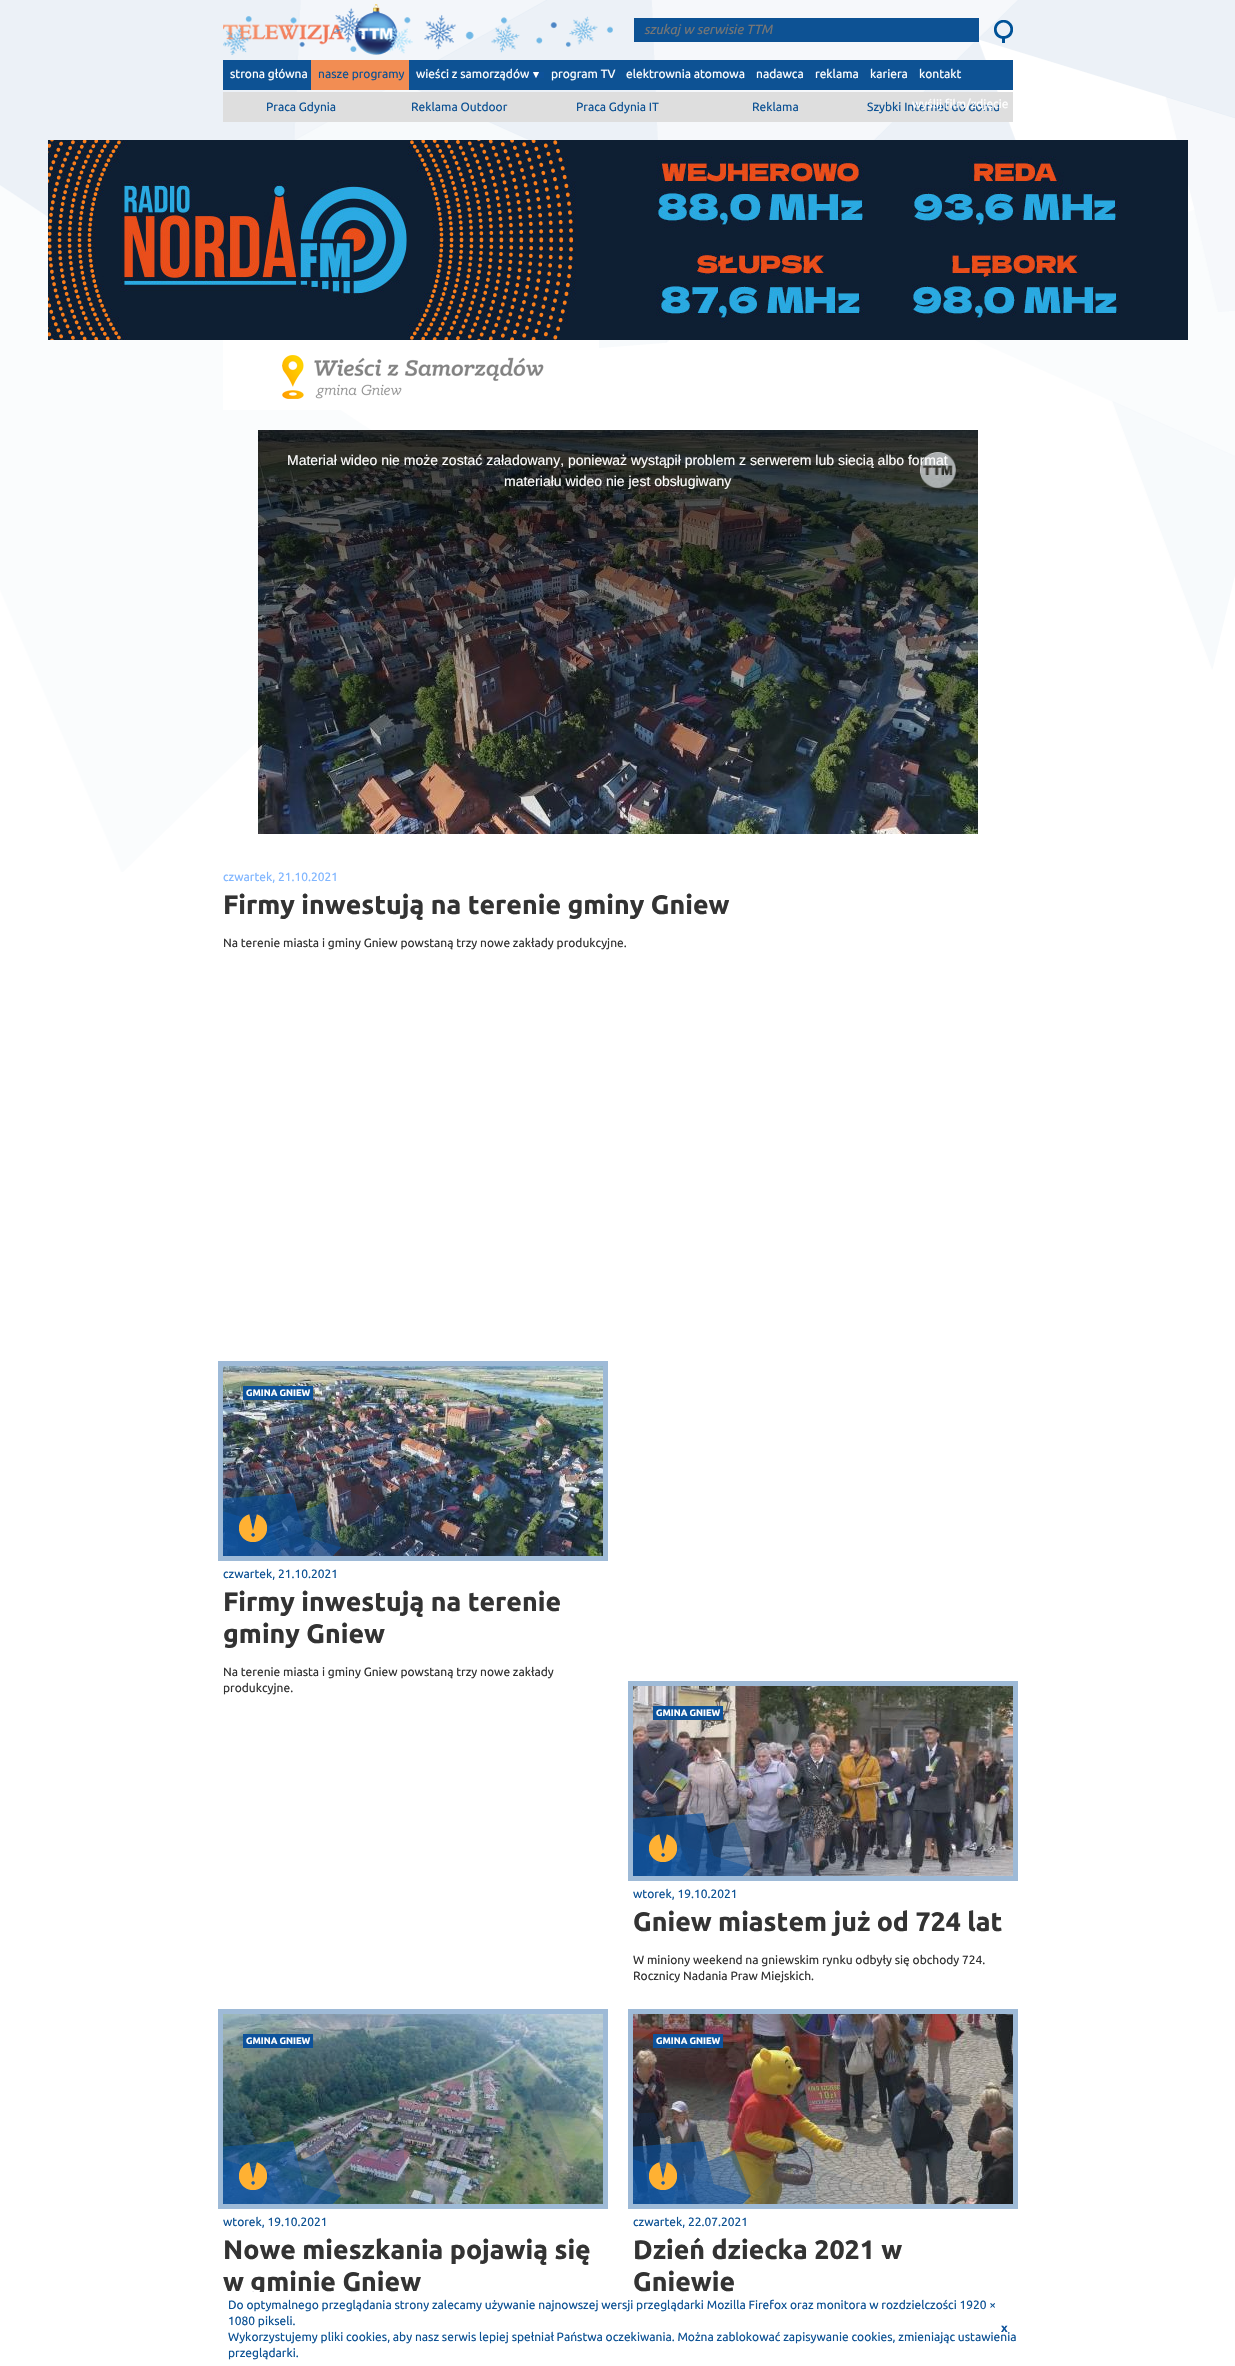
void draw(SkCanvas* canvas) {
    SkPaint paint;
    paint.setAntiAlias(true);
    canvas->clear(0xFFFFFFFF);
    canvas->drawImageRect(SkImages::DeferredFromEncodedData(SkData::MakeFromFileName("img1.png")), SkRect::MakeXYWH(0, 0, 1235, 872), SkSamplingOptions());
    canvas->drawImageRect(SkImages::DeferredFromEncodedData(SkData::MakeFromFileName("img2.png")), SkRect::MakeXYWH(223, 4, 390, 51), SkSamplingOptions());
    paint.setColor(0xFF0D5294);
    canvas->drawRect(SkRect::MakeXYWH(634, 18, 345, 24), paint);
    SkFont font1(fontMgr->matchFamilyStyle("Ubuntu", SkFontStyle::Italic()), 13.25f);
    font1.setSubpixel(true);
    paint.setColor(0xFF757575);
    canvas->drawString("szukaj w serwisie TTM", 644, 34, font1, paint);
    canvas->drawImageRect(SkImages::DeferredFromEncodedData(SkData::MakeFromFileName("img3.png")), SkRect::MakeXYWH(994, 20, 19, 23), SkSamplingOptions());
    paint.setColor(0xFF0D5294);
    canvas->drawRect(SkRect::MakeXYWH(223, 60, 790, 30), paint);
    SkFont font2(fontMgr->matchFamilyStyle("Ubuntu", SkFontStyle::Normal()), 12);
    font2.setSubpixel(true);
    paint.setColor(0xFFFFFFFF);
    canvas->drawString("strona główna", 230, 78, font2, paint);
    paint.setColor(0xFFF28D53);
    canvas->drawRect(SkRect::MakeXYWH(311, 60, 98, 30), paint);
    paint.setColor(0xFF0D5294);
    canvas->drawString("nasze programy", 318, 78, font2, paint);
    canvas->drawImageRect(SkImages::DeferredFromEncodedData(SkData::MakeFromFileName("img4.png")), SkRect::MakeXYWH(529, 72, 15, 6), SkSamplingOptions());
    paint.setColor(0xFFFFFFFF);
    canvas->drawString("wieści z samorządów", 416, 78, font2, paint);
    canvas->drawString("program TV", 551, 78, font2, paint);
    canvas->drawString("elektrownia atomowa", 626, 78, font2, paint);
    canvas->drawString("nadawca", 756, 78, font2, paint);
    canvas->drawString("reklama", 815, 78, font2, paint);
    canvas->drawString("kariera", 870, 78, font2, paint);
    canvas->drawString("kontakt", 919, 78, font2, paint);
    paint.setColor(0xFFDEDEDE);
    canvas->drawRect(SkRect::MakeXYWH(223, 92, 790, 30), paint);
    paint.setColor(0xFF0D5294);
    canvas->drawString("Szybki Internet do domu", 867, 111, font2, paint);
    paint.setColor(0xFFFFFFFF);
    canvas->drawString("wyślij film/zdjęcie", 912, 108, font2, paint);
    paint.setColor(0xFF0D5294);
    canvas->drawString("Praca Gdynia", 266, 111, font2, paint);
    canvas->drawString("Reklama Outdoor", 411, 111, font2, paint);
    canvas->drawString("Praca Gdynia IT", 576, 111, font2, paint);
    canvas->drawString("Reklama", 752, 111, font2, paint);
    canvas->drawImageRect(SkImages::DeferredFromEncodedData(SkData::MakeFromFileName("img5.png")), SkRect::MakeXYWH(48, 140, 1140, 200), SkSamplingOptions());
    canvas->drawImageRect(SkImages::DeferredFromEncodedData(SkData::MakeFromFileName("img6.png")), SkRect::MakeXYWH(223, 340, 376, 70), SkSamplingOptions());
    canvas->drawImageRect(SkImages::DeferredFromEncodedData(SkData::MakeFromFileName("img7.png")), SkRect::MakeXYWH(258, 430, 720, 404), SkSamplingOptions());
    canvas->drawImageRect(SkImages::DeferredFromEncodedData(SkData::MakeFromFileName("img8.png")), SkRect::MakeXYWH(920, 452, 36, 36), SkSamplingOptions());
    SkFont font3(fontMgr->matchFamilyStyle("Liberation Sans", SkFontStyle::Normal()), 14);
    font3.setSubpixel(true);
    paint.setColor(0xFFFFFFFF);
    canvas->drawString("Materiał wideo nie może zostać załadowany, ponieważ wystąpił problem z serwerem lub siecią albo format", 287, 465, font3, paint);
    canvas->drawString("materiału wideo nie jest obsługiwany", 504, 486, font3, paint);
    paint.setColor(0xFF80B6FF);
    canvas->drawString("czwartek, 21.10.2021", 223, 881, font2, paint);
    SkFont font4(fontMgr->matchFamilyStyle("Ubuntu", SkFontStyle::Bold()), 26.7f);
    font4.setSubpixel(true);
    paint.setColor(0xFF333333);
    canvas->drawString("Firmy inwestują na terenie gminy Gniew", 223, 914, font4, paint);
    canvas->drawString("Na terenie miasta i gminy Gniew powstaną trzy nowe zakłady produkcyjne.", 223, 947, font2, paint);
    paint.setStyle(SkPaint::kStroke_Style);
    paint.setStrokeWidth(5);
    paint.setColor(0xFF9EBAD7);
    canvas->drawRect(SkRect::MakeXYWH(220.5f, 1363.5f, 385, 195), paint);
    canvas->drawImageRect(SkImages::DeferredFromEncodedData(SkData::MakeFromFileName("img9.png")), SkRect::MakeXYWH(223, 1366, 380, 190), SkSamplingOptions());
    canvas->drawImageRect(SkImages::DeferredFromEncodedData(SkData::MakeFromFileName("img10.png")), SkRect::MakeXYWH(223, 1366, 380, 190), SkSamplingOptions());
    paint.setStyle(SkPaint::kFill_Style);
    paint.setColor(0xFF0D529B);
    canvas->drawRect(SkRect::MakeXYWH(243, 1386, 70, 14), paint);
    SkFont font5(fontMgr->matchFamilyStyle("Ubuntu", SkFontStyle::Bold()), 9.25f);
    font5.setSubpixel(true);
    paint.setColor(0xFFFFFFFF);
    canvas->drawString("GMINA GNIEW", 246, 1396, font5, paint);
    canvas->drawImageRect(SkImages::DeferredFromEncodedData(SkData::MakeFromFileName("img11.png")), SkRect::MakeXYWH(239, 1514, 28, 28), SkSamplingOptions());
    paint.setColor(0xFF0D5294);
    canvas->drawString("czwartek, 21.10.2021", 223, 1578, font2, paint);
    paint.setColor(0xFF333333);
    canvas->drawString("Firmy inwestują na terenie", 223, 1611, font4, paint);
    canvas->drawString("gminy Gniew", 223, 1643, font4, paint);
    canvas->drawString("Na terenie miasta i gminy Gniew powstaną trzy nowe zakłady", 223, 1676, font2, paint);
    canvas->drawString("produkcyjne.", 223, 1692, font2, paint);
    paint.setStyle(SkPaint::kStroke_Style);
    paint.setColor(0xFF9EBAD7);
    canvas->drawRect(SkRect::MakeXYWH(630.5f, 1683.5f, 385, 195), paint);
    canvas->drawImageRect(SkImages::DeferredFromEncodedData(SkData::MakeFromFileName("img12.png")), SkRect::MakeXYWH(633, 1686, 380, 190), SkSamplingOptions());
    canvas->drawImageRect(SkImages::DeferredFromEncodedData(SkData::MakeFromFileName("img13.png")), SkRect::MakeXYWH(633, 1686, 380, 190), SkSamplingOptions());
    paint.setStyle(SkPaint::kFill_Style);
    paint.setColor(0xFF0D529B);
    canvas->drawRect(SkRect::MakeXYWH(653, 1706, 70, 14), paint);
    paint.setColor(0xFFFFFFFF);
    canvas->drawString("GMINA GNIEW", 656, 1716, font5, paint);
    canvas->drawImageRect(SkImages::DeferredFromEncodedData(SkData::MakeFromFileName("img14.png")), SkRect::MakeXYWH(649, 1834, 28, 28), SkSamplingOptions());
    paint.setColor(0xFF0D5294);
    canvas->drawString("wtorek, 19.10.2021", 633, 1898, font2, paint);
    paint.setColor(0xFF333333);
    canvas->drawString("Gniew miastem już od 724 lat", 633, 1931, font4, paint);
    canvas->drawString("W miniony weekend na gniewskim rynku odbyły się obchody 724.", 633, 1964, font2, paint);
    canvas->drawString("Rocznicy Nadania Praw Miejskich.", 633, 1980, font2, paint);
    paint.setStyle(SkPaint::kStroke_Style);
    paint.setColor(0xFF9EBAD7);
    canvas->drawRect(SkRect::MakeXYWH(220.5f, 2011.5f, 385, 195), paint);
    canvas->drawImageRect(SkImages::DeferredFromEncodedData(SkData::MakeFromFileName("img15.png")), SkRect::MakeXYWH(223, 2014, 380, 190), SkSamplingOptions());
    canvas->drawImageRect(SkImages::DeferredFromEncodedData(SkData::MakeFromFileName("img16.png")), SkRect::MakeXYWH(223, 2014, 380, 190), SkSamplingOptions());
    paint.setStyle(SkPaint::kFill_Style);
    paint.setColor(0xFF0D529B);
    canvas->drawRect(SkRect::MakeXYWH(243, 2034, 70, 14), paint);
    paint.setColor(0xFFFFFFFF);
    canvas->drawString("GMINA GNIEW", 246, 2044, font5, paint);
    canvas->drawImageRect(SkImages::DeferredFromEncodedData(SkData::MakeFromFileName("img17.png")), SkRect::MakeXYWH(239, 2162, 28, 28), SkSamplingOptions());
    paint.setColor(0xFF0D5294);
    canvas->drawString("wtorek, 19.10.2021", 223, 2226, font2, paint);
    paint.setColor(0xFF333333);
    canvas->drawString("Nowe mieszkania pojawią się", 223, 2259, font4, paint);
    canvas->drawString("w gminie Gniew", 223, 2291, font4, paint);
    paint.setStyle(SkPaint::kStroke_Style);
    paint.setColor(0xFF9EBAD7);
    canvas->drawRect(SkRect::MakeXYWH(630.5f, 2011.5f, 385, 195), paint);
    canvas->drawImageRect(SkImages::DeferredFromEncodedData(SkData::MakeFromFileName("img18.png")), SkRect::MakeXYWH(633, 2014, 380, 190), SkSamplingOptions());
    canvas->drawImageRect(SkImages::DeferredFromEncodedData(SkData::MakeFromFileName("img19.png")), SkRect::MakeXYWH(633, 2014, 380, 190), SkSamplingOptions());
    paint.setStyle(SkPaint::kFill_Style);
    paint.setColor(0xFF0D529B);
    canvas->drawRect(SkRect::MakeXYWH(653, 2034, 70, 14), paint);
    paint.setColor(0xFFFFFFFF);
    canvas->drawString("GMINA GNIEW", 656, 2044, font5, paint);
    canvas->drawImageRect(SkImages::DeferredFromEncodedData(SkData::MakeFromFileName("img20.png")), SkRect::MakeXYWH(649, 2162, 28, 28), SkSamplingOptions());
    paint.setColor(0xFF0D5294);
    canvas->drawString("czwartek, 22.07.2021", 633, 2226, font2, paint);
    paint.setColor(0xFF333333);
    canvas->drawString("Dzień dziecka 2021 w", 633, 2259, font4, paint);
    canvas->drawString("Gniewie", 633, 2291, font4, paint);
    paint.setColor(0xFFFFFFFF);
    canvas->drawRect(SkRect::MakeXYWH(251, 2292, 13, 4), paint);
    paint.setColor(0xFF0D5294);
    canvas->drawString("Do optymalnego przeglądania strony zalecamy używanie najnowszej wersji przeglądarki Mozilla Firefox oraz monitora w rozdzielczości 1920 ×", 228, 2309, font2, paint);
    canvas->drawString("1080 pikseli.", 228, 2325, font2, paint);
    SkFont font6(fontMgr->matchFamilyStyle("Ubuntu", SkFontStyle::Bold()), 12);
    font6.setSubpixel(true);
    paint.setColor(0xFF0D529B);
    canvas->drawString("x", 1001, 2332, font6, paint);
    paint.setColor(0xFF0D5294);
    canvas->drawString("Wykorzystujemy pliki cookies, aby nasz serwis lepiej spełniał Państwa oczekiwania. Można zablokować zapisywanie cookies, zmieniając ustawienia", 228, 2341, font2, paint);
    canvas->drawString("przeglądarki.", 228, 2357, font2, paint);
}
